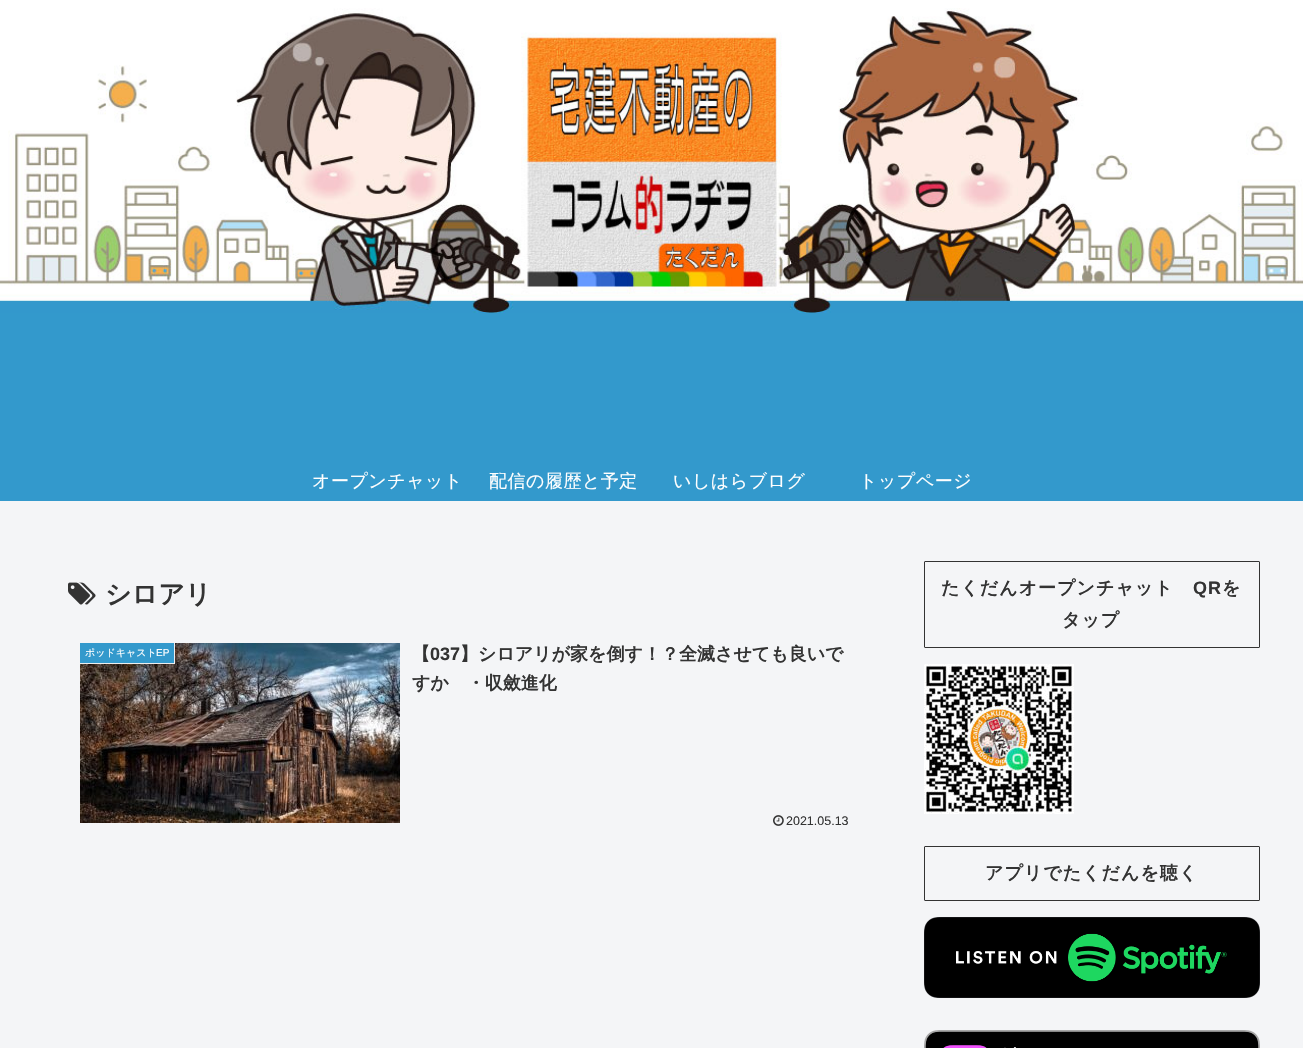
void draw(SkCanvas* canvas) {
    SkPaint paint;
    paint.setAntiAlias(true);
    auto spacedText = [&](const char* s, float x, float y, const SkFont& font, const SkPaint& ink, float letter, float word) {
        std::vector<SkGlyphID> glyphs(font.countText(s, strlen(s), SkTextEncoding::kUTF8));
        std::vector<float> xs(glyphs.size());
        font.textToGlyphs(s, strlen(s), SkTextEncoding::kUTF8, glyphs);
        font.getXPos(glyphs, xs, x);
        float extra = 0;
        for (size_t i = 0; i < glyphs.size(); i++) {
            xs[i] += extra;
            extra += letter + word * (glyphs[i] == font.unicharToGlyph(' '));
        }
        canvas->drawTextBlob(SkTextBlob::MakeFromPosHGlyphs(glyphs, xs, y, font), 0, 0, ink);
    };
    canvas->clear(0xFFF4F5F7);
    paint.setColor(0xFF3399CC);
    canvas->drawRect(SkRect::MakeXYWH(0, 313, 1303, 188), paint);
    canvas->drawImageRect(SkImages::DeferredFromEncodedData(SkData::MakeFromFileName("img1.png")), SkRect::MakeXYWH(0, 0, 1303, 313), SkSamplingOptions());
    SkFont font1(fontMgr->matchFamilyStyle("WenQuanYi Zen Hei", SkFontStyle(500, SkFontStyle::kNormal_Width, SkFontStyle::kUpright_Slant)), 18);
    font1.setSubpixel(true);
    paint.setColor(0xFFFFFFFF);
    spacedText("オープンチャット", 312, 487, font1, paint, 0.5f, 0);
    spacedText("配信の履歴と予定", 489, 487, font1, paint, 0.5f, 0);
    spacedText("いしはらブログ", 673, 487, font1, paint, 0.5f, 0);
    spacedText("トップページ", 859, 487, font1, paint, 0.5f, 0);
    canvas->drawImageRect(SkImages::DeferredFromEncodedData(SkData::MakeFromFileName("img2.png")), SkRect::MakeXYWH(68, 582, 28, 23), SkSamplingOptions());
    SkFont font2(fontMgr->matchFamilyStyle("WenQuanYi Zen Hei", SkFontStyle::Bold()), 26);
    font2.setSubpixel(true);
    paint.setColor(0xFF333333);
    canvas->drawString("シロアリ", 105, 603, font2, paint);
    canvas->drawImageRect(SkImages::DeferredFromEncodedData(SkData::MakeFromFileName("img3.png")), SkRect::MakeXYWH(80, 643, 320, 180), SkSamplingOptions());
    paint.setColor(0xFF3399CC);
    canvas->drawRect(SkRect::MakeXYWH(80, 643, 94, 20), paint);
    paint.setColor(0xFFEEEEEE);
    canvas->drawRect(SkRect::MakeXYWH(174, 643, 1, 21), paint);
    canvas->drawRect(SkRect::MakeXYWH(80, 663, 95, 1), paint);
    SkFont font3(fontMgr->matchFamilyStyle("WenQuanYi Zen Hei", SkFontStyle(500, SkFontStyle::kNormal_Width, SkFontStyle::kUpright_Slant)), 10);
    font3.setSubpixel(true);
    paint.setColor(0xFFFFFFFF);
    canvas->drawString("ポッドキャスト", 85, 656, font3, paint);
    SkFont font4(fontMgr->matchFamilyStyle("Liberation Sans", SkFontStyle::Normal()), 10);
    font4.setSubpixel(true);
    canvas->drawString("EP", 156, 656, font4, paint);
    SkFont font5(fontMgr->matchFamilyStyle("WenQuanYi Zen Hei", SkFontStyle::Bold()), 18);
    font5.setSubpixel(true);
    paint.setColor(0xFF333333);
    canvas->drawString("【", 412, 660, font5, paint);
    SkFont font6(fontMgr->matchFamilyStyle("Liberation Sans", SkFontStyle::Bold()), 18);
    font6.setSubpixel(true);
    canvas->drawString("037", 430, 660, font6, paint);
    canvas->drawString("】シロアリが家を倒す！？全滅させても良いで", 460, 660, font5, paint);
    canvas->drawString("すか　・収斂進化", 412, 689, font5, paint);
    canvas->drawImageRect(SkImages::DeferredFromEncodedData(SkData::MakeFromFileName("img4.png")), SkRect::MakeXYWH(773, 815, 11, 11), SkSamplingOptions());
    SkFont font7(fontMgr->matchFamilyStyle("Liberation Sans", SkFontStyle::Normal()), 12.5f);
    font7.setSubpixel(true);
    canvas->drawString("2021.05.13", 786, 825, font7, paint);
    paint.setStyle(SkPaint::kStroke_Style);
    paint.setStrokeWidth(1);
    canvas->drawRoundRect(SkRect::MakeXYWH(924.5f, 561.5f, 335, 86), 0.5f, 0.5f, paint);
    paint.setStyle(SkPaint::kFill_Style);
    spacedText("たくだんオープンチャット", 941, 594, font5, paint, 1, 0);
    spacedText("QR", 1193, 594, font6, paint, 1, 0);
    spacedText("を", 1222, 594, font5, paint, 1, 0);
    spacedText("タップ", 1062, 626, font5, paint, 1, 0);
    canvas->drawImageRect(SkImages::DeferredFromEncodedData(SkData::MakeFromFileName("img5.png")), SkRect::MakeXYWH(924, 664, 150, 150), SkSamplingOptions());
    paint.setStyle(SkPaint::kStroke_Style);
    canvas->drawRoundRect(SkRect::MakeXYWH(924.5f, 846.5f, 335, 54), 0.5f, 0.5f, paint);
    paint.setStyle(SkPaint::kFill_Style);
    spacedText("アプリでたくだんを聴く", 985, 879, font5, paint, 1, 0);
    canvas->drawImageRect(SkImages::DeferredFromEncodedData(SkData::MakeFromFileName("img6.png")), SkRect::MakeXYWH(924, 917, 336, 81), SkSamplingOptions());
    canvas->drawImageRect(SkImages::DeferredFromEncodedData(SkData::MakeFromFileName("img7.png")), SkRect::MakeXYWH(924, 1030, 336, 18), SkSamplingOptions());
}
